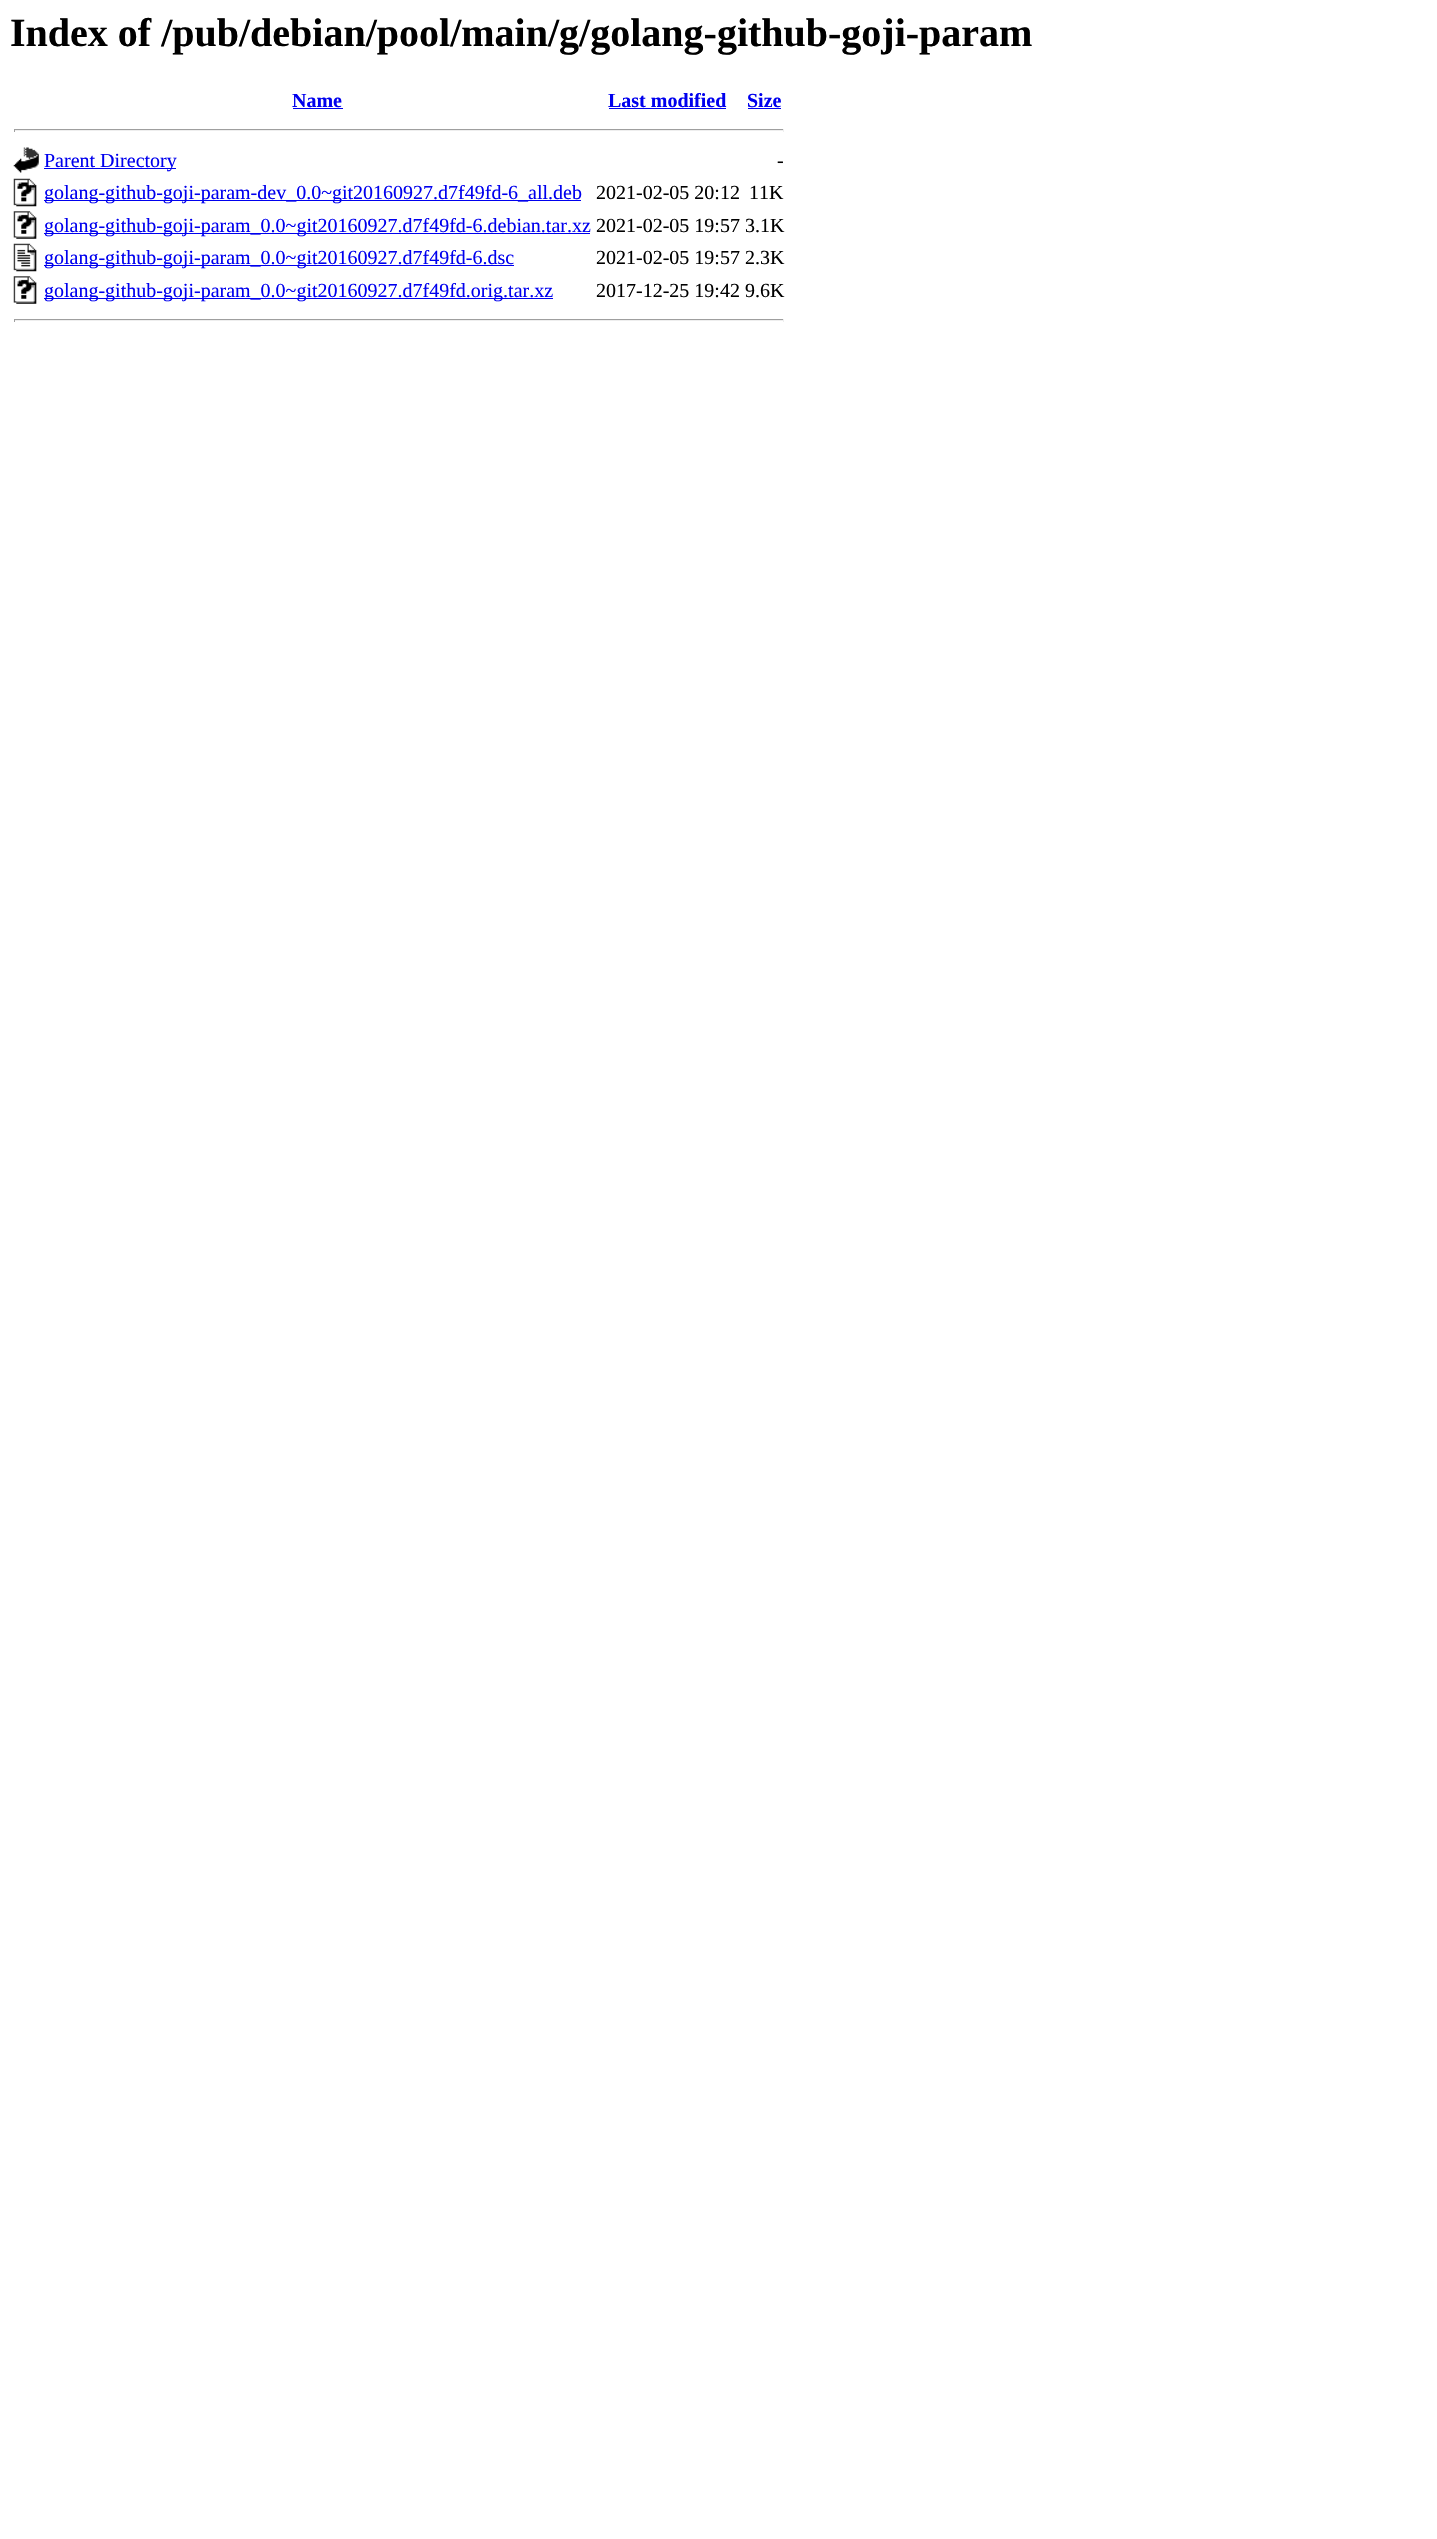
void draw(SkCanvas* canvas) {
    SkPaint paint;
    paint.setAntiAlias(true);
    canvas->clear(0xFFFFFFFF);
    SkFont font1(fontMgr->matchFamilyStyle("Liberation Serif", SkFontStyle::Bold()), 40);
    font1.setSubpixel(true);
    paint.setColor(0xFF000000);
    canvas->drawString("Index of /pub/debian/pool/main/g/golang-github-goji-param", 10, 46, font1, paint);
    SkFont font2(fontMgr->matchFamilyStyle("Liberation Serif", SkFontStyle::Bold()), 20);
    font2.setSubpixel(true);
    paint.setColor(0xFF0000EE);
    canvas->drawString("Name", 292, 107, font2, paint);
    canvas->drawRect(SkRect::MakeXYWH(293, 108, 50, 1), paint);
    canvas->drawString("Last modified", 608, 107, font2, paint);
    canvas->drawRect(SkRect::MakeXYWH(609, 108, 117, 1), paint);
    canvas->drawString("Size", 747, 107, font2, paint);
    canvas->drawRect(SkRect::MakeXYWH(748, 108, 33, 1), paint);
    paint.setColor(0xFF9F9F9F);
    canvas->drawRect(SkRect::MakeXYWH(14, 129, 770, 1), paint);
    paint.setColor(0xFFEEEEEE);
    canvas->drawRect(SkRect::MakeXYWH(783, 129, 1, 3), paint);
    canvas->drawRect(SkRect::MakeXYWH(14, 130, 770, 1), paint);
    paint.setColor(0xFF9F9F9F);
    canvas->drawRect(SkRect::MakeXYWH(14, 129, 1, 3), paint);
    canvas->drawImageRect(SkImages::DeferredFromEncodedData(SkData::MakeFromFileName("img1.png")), SkRect::MakeXYWH(13, 147, 26, 26), SkSamplingOptions());
    paint.setColor(0xFF0000EE);
    canvas->drawRect(SkRect::MakeXYWH(44, 168, 132, 1), paint);
    SkFont font3(fontMgr->matchFamilyStyle("Liberation Serif", SkFontStyle::Normal()), 20);
    font3.setSubpixel(true);
    canvas->drawString("Parent Directory", 44, 167, font3, paint);
    paint.setColor(0xFF000000);
    canvas->drawString("-", 777, 167, font3, paint);
    canvas->drawImageRect(SkImages::DeferredFromEncodedData(SkData::MakeFromFileName("img2.png")), SkRect::MakeXYWH(13, 178, 24, 29), SkSamplingOptions());
    paint.setColor(0xFF0000EE);
    canvas->drawRect(SkRect::MakeXYWH(44, 200, 537, 1), paint);
    canvas->drawString("golang-github-goji-param-dev_0.0~git20160927.d7f49fd-6_all.deb", 44, 199, font3, paint);
    paint.setColor(0xFF000000);
    canvas->drawString("2021-02-05 20:12", 596, 199, font3, paint);
    canvas->drawString("11K", 749, 199, font3, paint);
    canvas->drawImageRect(SkImages::DeferredFromEncodedData(SkData::MakeFromFileName("img3.png")), SkRect::MakeXYWH(13, 211, 24, 28), SkSamplingOptions());
    paint.setColor(0xFF0000EE);
    canvas->drawRect(SkRect::MakeXYWH(44, 233, 546, 1), paint);
    canvas->drawString("golang-github-goji-param_0.0~git20160927.d7f49fd-6.debian.tar.xz", 44, 232, font3, paint);
    paint.setColor(0xFF000000);
    canvas->drawString("2021-02-05 19:57 3.1K", 596, 232, font3, paint);
    canvas->drawImageRect(SkImages::DeferredFromEncodedData(SkData::MakeFromFileName("img4.png")), SkRect::MakeXYWH(13, 243, 24, 29), SkSamplingOptions());
    paint.setColor(0xFF0000EE);
    canvas->drawRect(SkRect::MakeXYWH(44, 265, 470, 1), paint);
    canvas->drawString("golang-github-goji-param_0.0~git20160927.d7f49fd-6.dsc", 44, 264, font3, paint);
    paint.setColor(0xFF000000);
    canvas->drawString("2021-02-05 19:57 2.3K", 596, 264, font3, paint);
    canvas->drawImageRect(SkImages::DeferredFromEncodedData(SkData::MakeFromFileName("img5.png")), SkRect::MakeXYWH(13, 276, 24, 28), SkSamplingOptions());
    paint.setColor(0xFF0000EE);
    canvas->drawRect(SkRect::MakeXYWH(44, 298, 509, 1), paint);
    canvas->drawString("golang-github-goji-param_0.0~git20160927.d7f49fd.orig.tar.xz", 44, 297, font3, paint);
    paint.setColor(0xFF000000);
    canvas->drawString("2017-12-25 19:42 9.6K", 596, 297, font3, paint);
    paint.setColor(0xFF9F9F9F);
    canvas->drawRect(SkRect::MakeXYWH(14, 319, 770, 1), paint);
    paint.setColor(0xFFEEEEEE);
    canvas->drawRect(SkRect::MakeXYWH(783, 319, 1, 3), paint);
    canvas->drawRect(SkRect::MakeXYWH(14, 320, 770, 1), paint);
    paint.setColor(0xFF9F9F9F);
    canvas->drawRect(SkRect::MakeXYWH(14, 319, 1, 3), paint);
}
